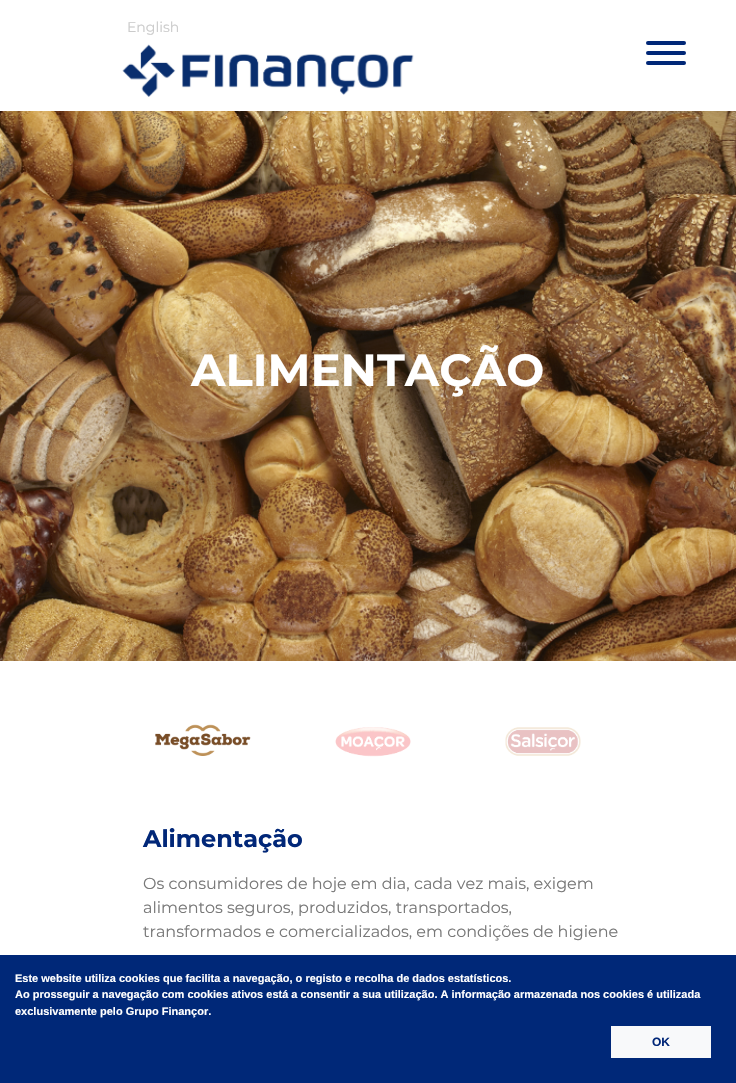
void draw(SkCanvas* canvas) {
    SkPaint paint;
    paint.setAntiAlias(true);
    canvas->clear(0xFFFFFFFF);
    SkFont font1(fontMgr->matchFamilyStyle("Montserrat", SkFontStyle::Normal()), 14);
    font1.setSubpixel(true);
    paint.setColor(0xFFCBCBCB);
    canvas->drawString("English", 127, 32, font1, paint);
    canvas->drawImageRect(SkImages::DeferredFromEncodedData(SkData::MakeFromFileName("img1.png")), SkRect::MakeXYWH(122, 44, 292, 53), SkSamplingOptions());
    paint.setColor(0xFF002777);
    canvas->drawRoundRect(SkRect::MakeXYWH(646, 61, 40, 4), 2, 2, paint);
    canvas->drawRoundRect(SkRect::MakeXYWH(646, 41, 40, 4), 2, 2, paint);
    canvas->drawRoundRect(SkRect::MakeXYWH(646, 51, 40, 4), 2, 2, paint);
    canvas->drawImageRect(SkImages::DeferredFromEncodedData(SkData::MakeFromFileName("img2.png")), SkRect::MakeXYWH(0, 111, 736, 550), SkSamplingOptions());
    SkFont font2(fontMgr->matchFamilyStyle("Montserrat", SkFontStyle::Bold()), 45);
    font2.setSubpixel(true);
    paint.setColor(0xFFFFFFFF);
    canvas->drawString("ALIMENTAÇÃO", 191, 386, font2, paint);
    canvas->drawImageRect(SkImages::DeferredFromEncodedData(SkData::MakeFromFileName("img3.png")), SkRect::MakeXYWH(155, 724, 96, 32), SkSamplingOptions());
    canvas->drawImageRect(SkImages::DeferredFromEncodedData(SkData::MakeFromFileName("img4.png")), SkRect::MakeXYWH(335, 727, 76, 30), SkSamplingOptions());
    canvas->drawImageRect(SkImages::DeferredFromEncodedData(SkData::MakeFromFileName("img5.png")), SkRect::MakeXYWH(505, 727, 76, 29), SkSamplingOptions());
    SkFont font3(fontMgr->matchFamilyStyle("Montserrat", SkFontStyle::Bold()), 24);
    font3.setSubpixel(true);
    paint.setColor(0xFF012778);
    canvas->drawString("Alimentação", 143, 847, font3, paint);
    SkFont font4(fontMgr->matchFamilyStyle("Montserrat", SkFontStyle::Normal()), 16);
    font4.setSubpixel(true);
    paint.setColor(0xFF787878);
    canvas->drawString("Os consumidores de hoje em dia, cada vez mais, exigem", 143, 889, font4, paint);
    canvas->drawString("alimentos seguros, produzidos, transportados,", 143, 913, font4, paint);
    canvas->drawString("transformados e comercializados, em condições de higiene", 143, 937, font4, paint);
    paint.setColor(0xFF002878);
    canvas->drawRect(SkRect::MakeXYWH(0, 955, 736, 128), paint);
    SkFont font5(fontMgr->matchFamilyStyle("Liberation Sans", SkFontStyle::Bold()), 11);
    font5.setSubpixel(true);
    paint.setColor(0xFFFFFFFF);
    canvas->drawString("Este website utiliza cookies que facilita a navegação, o registo e recolha de dados estatísticos.", 15, 982, font5, paint);
    canvas->drawString("Ao prosseguir a navegação com cookies ativos está a consentir a sua utilização. A informação armazenada nos cookies é utilizada", 15, 998, font5, paint);
    canvas->drawString("exclusivamente pelo Grupo Finançor.", 15, 1015, font5, paint);
    paint.setColor(0xFFF8F9FA);
    canvas->drawRect(SkRect::MakeXYWH(611, 1026, 100, 32), paint);
    SkFont font6(fontMgr->matchFamilyStyle("Liberation Sans", SkFontStyle::Bold()), 12);
    font6.setSubpixel(true);
    paint.setColor(0xFF012778);
    canvas->drawString("OK", 652, 1046, font6, paint);
}
